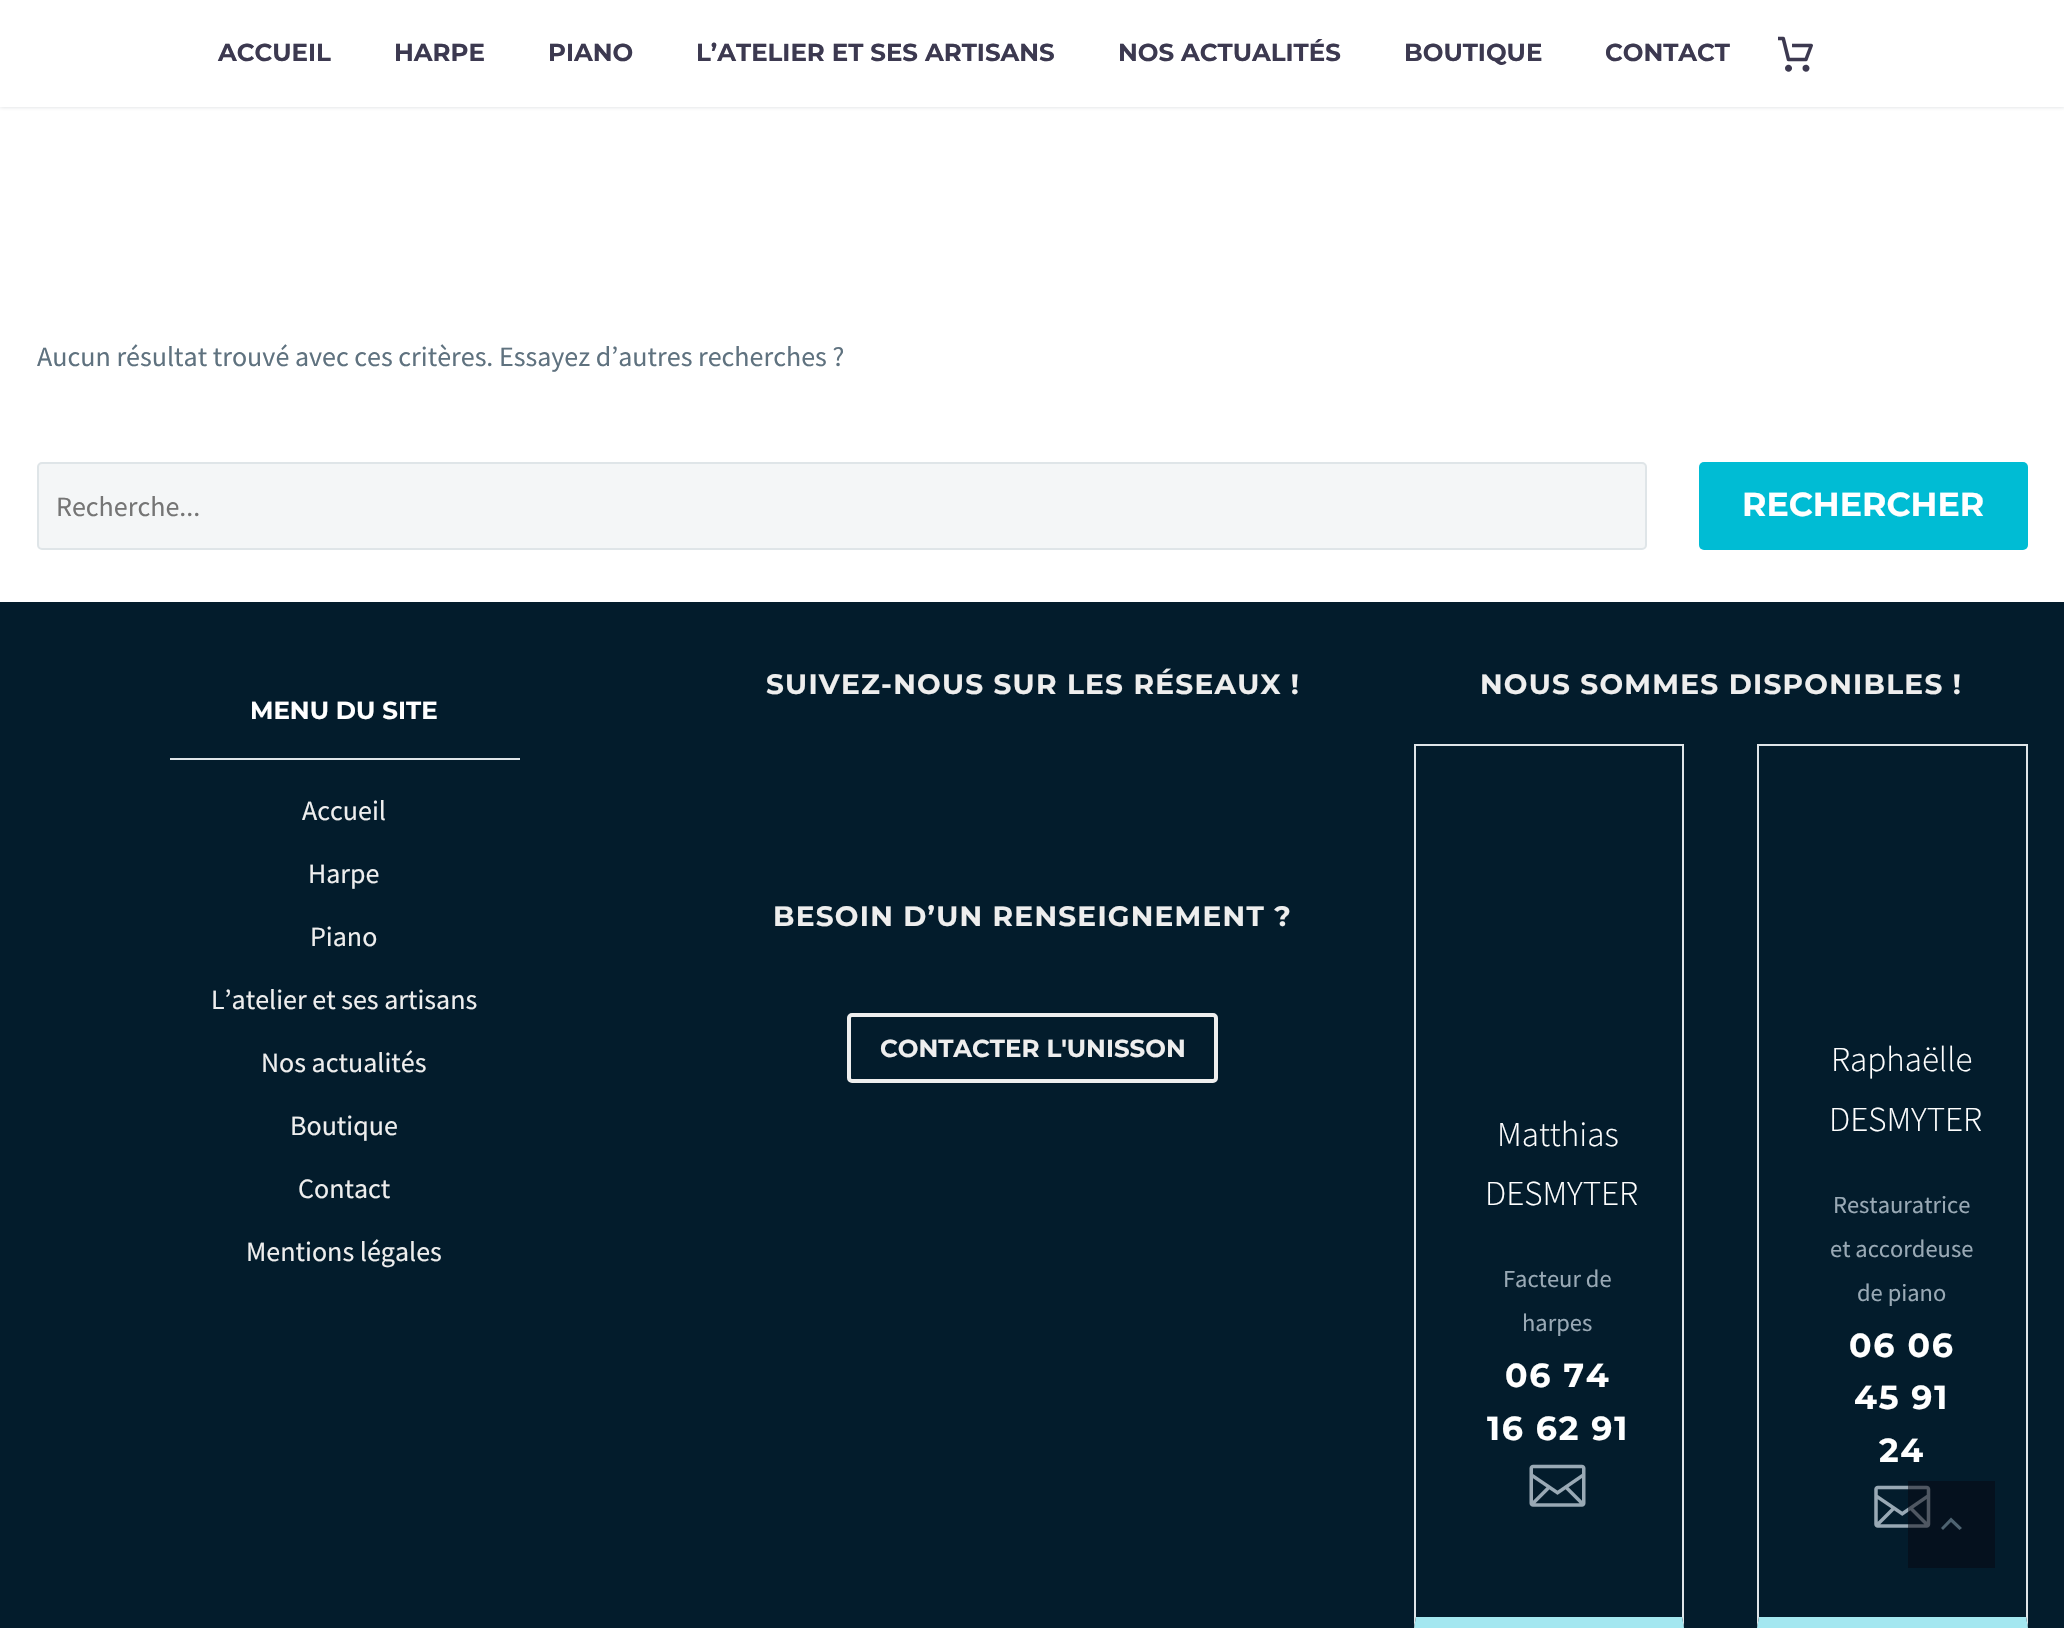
void draw(SkCanvas* canvas) {
    SkPaint paint;
    paint.setAntiAlias(true);
    auto spacedText = [&](const char* s, float x, float y, const SkFont& font, const SkPaint& ink, float letter, float word) {
        std::vector<SkGlyphID> glyphs(font.countText(s, strlen(s), SkTextEncoding::kUTF8));
        std::vector<float> xs(glyphs.size());
        font.textToGlyphs(s, strlen(s), SkTextEncoding::kUTF8, glyphs);
        font.getXPos(glyphs, xs, x);
        float extra = 0;
        for (size_t i = 0; i < glyphs.size(); i++) {
            xs[i] += extra;
            extra += letter + word * (glyphs[i] == font.unicharToGlyph(' '));
        }
        canvas->drawTextBlob(SkTextBlob::MakeFromPosHGlyphs(glyphs, xs, y, font), 0, 0, ink);
    };
    canvas->clear(0xFFFFFFFF);
    canvas->save();
    canvas->clipPath(SkPathBuilder(SkPathFillType::kEvenOdd).moveTo(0, 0).lineTo(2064, 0).lineTo(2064, 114).lineTo(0, 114).close().moveTo(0, 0).lineTo(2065, 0).lineTo(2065, 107).lineTo(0, 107).close().detach(), true);
    paint.setColor(0x33384554);
    paint.setMaskFilter(SkMaskFilter::MakeBlur(kNormal_SkBlurStyle, 2));
    canvas->drawRect(SkRect::MakeXYWH(0, 0, 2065, 107), paint);
    paint.setMaskFilter(nullptr);
    canvas->restore();
    SkFont font1(fontMgr->matchFamilyStyle("Montserrat", SkFontStyle::Bold()), 24.5f);
    font1.setSubpixel(true);
    paint.setColor(0xFF3C3950);
    canvas->drawString("ACCUEIL", 218, 61, font1, paint);
    canvas->drawString("HARPE", 394, 61, font1, paint);
    canvas->drawString("PIANO", 548, 61, font1, paint);
    canvas->drawString("L’ATELIER ET SES ARTISANS", 696, 61, font1, paint);
    canvas->drawString("NOS ACTUALITÉS", 1118, 61, font1, paint);
    canvas->drawString("BOUTIQUE", 1404, 61, font1, paint);
    canvas->drawString("CONTACT", 1605, 61, font1, paint);
    canvas->drawImageRect(SkImages::DeferredFromEncodedData(SkData::MakeFromFileName("img1.png")), SkRect::MakeXYWH(1778, 36, 35, 36), SkSamplingOptions());
    paint.setColor(0xF2FFFFFF);
    canvas->drawRect(SkRect::MakeXYWH(0, 106, 2064, 1), paint);
    SkFont font2(fontMgr->matchFamilyStyle("Source Sans Pro", SkFontStyle::Normal()), 28);
    font2.setSubpixel(true);
    paint.setColor(0xFF5F727F);
    canvas->drawString("Aucun résultat trouvé avec ces critères. Essayez d’autres recherches ?", 37, 366, font2, paint);
    paint.setColor(0xFFF4F6F7);
    canvas->drawRoundRect(SkRect::MakeXYWH(38, 463, 1608, 86), 4, 4, paint);
    paint.setStyle(SkPaint::kStroke_Style);
    paint.setStrokeWidth(2);
    paint.setColor(0xFFDFE5E8);
    canvas->drawRoundRect(SkRect::MakeXYWH(38, 463, 1608, 86), 4, 4, paint);
    paint.setStyle(SkPaint::kFill_Style);
    paint.setColor(0xFF757575);
    canvas->drawString("Recherche...", 56, 516, font2, paint);
    paint.setColor(0xFF00BCD4);
    canvas->drawRoundRect(SkRect::MakeXYWH(1699, 462, 329, 88), 5, 5, paint);
    SkFont font3(fontMgr->matchFamilyStyle("Montserrat", SkFontStyle::Bold()), 33.25f);
    font3.setSubpixel(true);
    paint.setColor(0xFFFFFFFF);
    canvas->drawString("RECHERCHER", 1742, 516, font3, paint);
    paint.setColor(0xFF031C2C);
    canvas->drawRect(SkRect::MakeXYWH(0, 602, 2064, 1026), paint);
    paint.setColor(0xFFFFFFFF);
    canvas->drawString("MENU DU SITE", 250, 719, font1, paint);
    paint.setColor(0xFFDFE5E8);
    canvas->drawRect(SkRect::MakeXYWH(170, 758, 350, 2), paint);
    paint.setColor(0xFFEEEEEE);
    canvas->drawString("Accueil", 302, 820, font2, paint);
    canvas->drawString("Harpe", 308, 883, font2, paint);
    canvas->drawString("Piano", 310, 946, font2, paint);
    canvas->drawString("L’atelier et ses artisans", 211, 1009, font2, paint);
    canvas->drawString("Nos actualités", 261, 1072, font2, paint);
    canvas->drawString("Boutique", 290, 1135, font2, paint);
    canvas->drawString("Contact", 298, 1198, font2, paint);
    canvas->drawString("Mentions légales", 246, 1261, font2, paint);
    SkFont font4(fontMgr->matchFamilyStyle("Montserrat", SkFontStyle::Bold()), 28);
    font4.setSubpixel(true);
    spacedText("SUIVEZ-NOUS SUR LES RÉSEAUX !", 766, 694, font4, paint, 1.25f, 0);
    spacedText("BESOIN D’UN RENSEIGNEMENT ?", 773, 926, font4, paint, 1.25f, 0);
    paint.setStyle(SkPaint::kStroke_Style);
    paint.setStrokeWidth(4);
    canvas->drawRoundRect(SkRect::MakeXYWH(849, 1015, 367, 66), 3, 3, paint);
    paint.setStyle(SkPaint::kFill_Style);
    canvas->drawString("CONTACTER L'UNISSON", 880, 1057, font1, paint);
    spacedText("NOUS SOMMES DISPONIBLES !", 1480, 694, font4, paint, 1.25f, 0);
    paint.setColor(0xFFDFE5E8);
    canvas->drawRect(SkRect::MakeXYWH(1414, 744, 270, 2), paint);
    canvas->drawPath(SkPathBuilder().moveTo(1684, 744).lineTo(1684, 1628).lineTo(1682, 1617).lineTo(1682, 746).close().detach(), paint);
    paint.setColor(0xFFA3E7F0);
    canvas->drawPath(SkPathBuilder().moveTo(1684, 1628).lineTo(1414, 1628).lineTo(1416, 1617).lineTo(1682, 1617).close().detach(), paint);
    paint.setColor(0xFFDFE5E8);
    canvas->drawPath(SkPathBuilder().moveTo(1414, 1628).lineTo(1414, 744).lineTo(1416, 746).lineTo(1416, 1617).close().detach(), paint);
    SkFont font5(fontMgr->matchFamilyStyle("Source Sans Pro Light", SkFontStyle(300, SkFontStyle::kNormal_Width, SkFontStyle::kUpright_Slant)), 35);
    font5.setSubpixel(true);
    paint.setColor(0xFFFFFFFF);
    canvas->drawString("Matthias", 1497, 1146, font5, paint);
    canvas->drawString("DESMYTER", 1485, 1205, font5, paint);
    SkFont font6(fontMgr->matchFamilyStyle("Source Sans Pro", SkFontStyle::Normal()), 24.5f);
    font6.setSubpixel(true);
    paint.setColor(0xFF99A9B5);
    canvas->drawString("Facteur de", 1503, 1287, font6, paint);
    canvas->drawString("harpes", 1522, 1331, font6, paint);
    paint.setColor(0xFFFFFFFF);
    spacedText("06 74", 1505, 1387, font3, paint, 1.75f, 0);
    spacedText("16 62 91", 1487, 1440, font3, paint, 1.75f, 0);
    canvas->drawImageRect(SkImages::DeferredFromEncodedData(SkData::MakeFromFileName("img2.png")), SkRect::MakeXYWH(1529, 1464, 57, 43), SkSamplingOptions());
    paint.setColor(0xFFDFE5E8);
    canvas->drawRect(SkRect::MakeXYWH(1757, 744, 271, 2), paint);
    canvas->drawPath(SkPathBuilder().moveTo(2028, 744).lineTo(2028, 1628).lineTo(2026, 1617).lineTo(2026, 746).close().detach(), paint);
    paint.setColor(0xFFA3E7F0);
    canvas->drawPath(SkPathBuilder().moveTo(2028, 1628).lineTo(1757, 1628).lineTo(1759, 1617).lineTo(2026, 1617).close().detach(), paint);
    paint.setColor(0xFFDFE5E8);
    canvas->drawPath(SkPathBuilder().moveTo(1757, 1628).lineTo(1757, 744).lineTo(1759, 746).lineTo(1759, 1617).close().detach(), paint);
    paint.setColor(0xFFFFFFFF);
    canvas->drawString("Raphaëlle", 1831, 1071, font5, paint);
    canvas->drawString("DESMYTER", 1829, 1131, font5, paint);
    paint.setColor(0xFF99A9B5);
    canvas->drawString("Restauratrice", 1833, 1213, font6, paint);
    canvas->drawString("et accordeuse", 1830, 1257, font6, paint);
    canvas->drawString("de piano", 1857, 1301, font6, paint);
    paint.setColor(0xFFFFFFFF);
    spacedText("06 06", 1849, 1357, font3, paint, 1.75f, 0);
    spacedText("45 91", 1854, 1409, font3, paint, 1.75f, 0);
    spacedText("24", 1879, 1462, font3, paint, 1.75f, 0);
    canvas->drawImageRect(SkImages::DeferredFromEncodedData(SkData::MakeFromFileName("img3.png")), SkRect::MakeXYWH(1874, 1485, 57, 43), SkSamplingOptions());
    paint.setColor(0x8006060F);
    canvas->drawRect(SkRect::MakeXYWH(1908, 1481, 87, 87), paint);
    paint.setColor(0xFF4E6371);
    canvas->drawPath(SkPathBuilder().moveTo(1943, 1530).lineTo(1951, 1522).lineTo(1959.5f, 1530).lineTo(1962, 1528).lineTo(1951, 1517.5f).lineTo(1941, 1528).close().detach(), paint);
}
